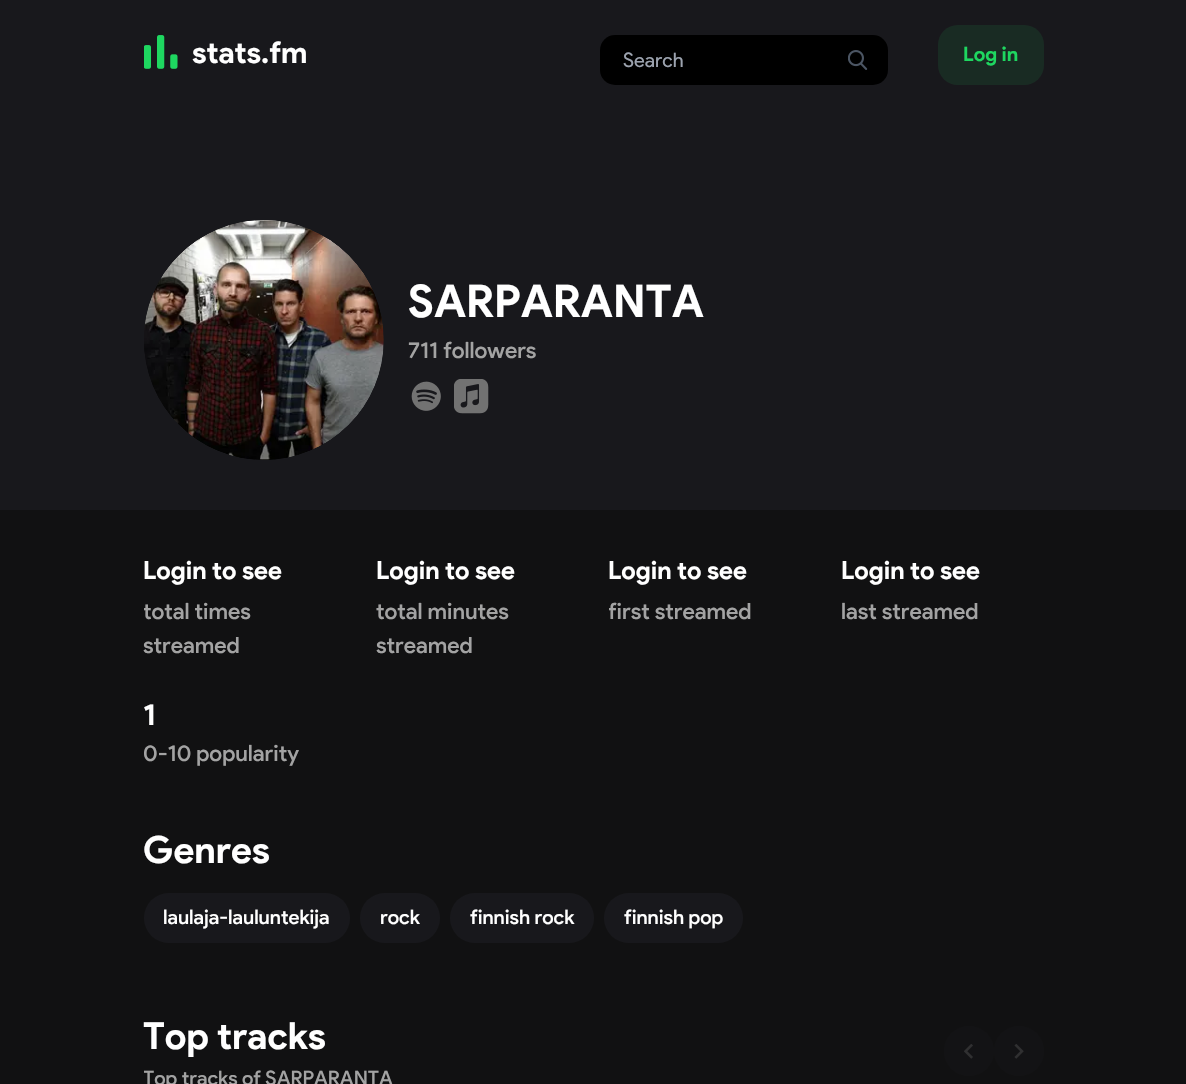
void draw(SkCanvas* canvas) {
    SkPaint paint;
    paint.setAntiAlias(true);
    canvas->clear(0xFF111112);
    paint.setColor(0xFF18181C);
    canvas->drawRect(SkRect::MakeXYWH(0, 0, 1186, 510), paint);
    canvas->drawImageRect(SkImages::DeferredFromEncodedData(SkData::MakeFromFileName("img1.png")), SkRect::MakeXYWH(144, 35, 34, 34), SkSamplingOptions());
    SkFont font1(fontMgr->matchFamilyStyle("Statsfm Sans", SkFontStyle::Bold()), 30);
    font1.setSubpixel(true);
    paint.setColor(0xFFFFFFFF);
    canvas->drawString("stats.fm", 192, 63, font1, paint);
    paint.setColor(0xFF000000);
    canvas->drawRoundRect(SkRect::MakeXYWH(600, 35, 288, 50), 15, 15, paint);
    SkFont font2(fontMgr->matchFamilyStyle("Statsfm Sans", SkFontStyle::Normal()), 20);
    font2.setSubpixel(true);
    paint.setColor(0xFF9CA3AF);
    canvas->drawString("Search", 623, 67, font2, paint);
    canvas->drawImageRect(SkImages::DeferredFromEncodedData(SkData::MakeFromFileName("img2.png")), SkRect::MakeXYWH(848, 50, 20, 20), SkSamplingOptions());
    paint.setColor(0xFF192B23);
    canvas->drawRoundRect(SkRect::MakeXYWH(938, 25, 106, 60), 20, 20, paint);
    SkFont font3(fontMgr->matchFamilyStyle("Statsfm Sans", SkFontStyle::Bold()), 20);
    font3.setSubpixel(true);
    paint.setColor(0xFF1ED760);
    canvas->drawString("Log in", 963, 61, font3, paint);
    canvas->drawImageRect(SkImages::DeferredFromEncodedData(SkData::MakeFromFileName("img3.png")), SkRect::MakeXYWH(144, 220, 240, 240), SkSamplingOptions());
    canvas->drawImageRect(SkImages::DeferredFromEncodedData(SkData::MakeFromFileName("img4.png")), SkRect::MakeXYWH(144, 220, 240, 240), SkSamplingOptions());
    SkFont font4(fontMgr->matchFamilyStyle("Statsfm Sans", SkFontStyle::Bold()), 45);
    font4.setSubpixel(true);
    paint.setColor(0xFFFFFFFF);
    canvas->drawString("SARPARANTA", 408, 317, font4, paint);
    SkFont font5(fontMgr->matchFamilyStyle("Statsfm Sans", SkFontStyle(500, SkFontStyle::kNormal_Width, SkFontStyle::kUpright_Slant)), 22.5f);
    font5.setSubpixel(true);
    paint.setColor(0xFFA3A3A3);
    canvas->drawString("711 followers", 408, 358, font5, paint);
    canvas->drawImageRect(SkImages::DeferredFromEncodedData(SkData::MakeFromFileName("img5.png")), SkRect::MakeXYWH(411, 381, 30, 30), SkSamplingOptions());
    canvas->drawImageRect(SkImages::DeferredFromEncodedData(SkData::MakeFromFileName("img6.png")), SkRect::MakeXYWH(454, 379, 35, 35), SkSamplingOptions());
    SkFont font6(fontMgr->matchFamilyStyle("Statsfm Sans", SkFontStyle::Bold()), 25);
    font6.setSubpixel(true);
    paint.setColor(0xFFFFFFFF);
    canvas->drawString("Login to see", 143, 579, font6, paint);
    canvas->save();
    canvas->clipRect(SkRect::MakeXYWH(144, 595, 202, 68));
    paint.setColor(0xFFA3A3A3);
    canvas->drawString("total times", 143, 619, font5, paint);
    canvas->restore();
    canvas->drawString("streamed", 143, 653, font5, paint);
    paint.setColor(0xFFFFFFFF);
    canvas->drawString("Login to see", 376, 579, font6, paint);
    paint.setColor(0xFFA3A3A3);
    canvas->drawString("total minutes", 376, 619, font5, paint);
    canvas->drawString("streamed", 376, 653, font5, paint);
    paint.setColor(0xFFFFFFFF);
    canvas->drawString("Login to see", 608, 579, font6, paint);
    canvas->save();
    canvas->clipRect(SkRect::MakeXYWH(609, 595, 202, 34));
    paint.setColor(0xFFA3A3A3);
    canvas->drawString("first streamed", 608, 619, font5, paint);
    canvas->restore();
    paint.setColor(0xFFFFFFFF);
    canvas->drawString("Login to see", 841, 579, font6, paint);
    paint.setColor(0xFFA3A3A3);
    canvas->drawString("last streamed", 841, 619, font5, paint);
    paint.setColor(0xFFFFFFFF);
    canvas->drawString("1", 143, 725, font1, paint);
    paint.setColor(0xFFA3A3A3);
    canvas->drawString("0-10 popularity", 143, 761, font5, paint);
    SkFont font7(fontMgr->matchFamilyStyle("Statsfm Sans", SkFontStyle::Bold()), 37.5f);
    font7.setSubpixel(true);
    paint.setColor(0xFFFFFFFF);
    canvas->drawString("Genres", 143, 863, font7, paint);
    paint.setColor(0xFF18181C);
    canvas->drawRoundRect(SkRect::MakeXYWH(144, 893, 206, 50), 25, 25, paint);
    SkFont font8(fontMgr->matchFamilyStyle("Statsfm Sans", SkFontStyle(500, SkFontStyle::kNormal_Width, SkFontStyle::kUpright_Slant)), 20);
    font8.setSubpixel(true);
    paint.setColor(0xFFFFFFFF);
    canvas->drawString("laulaja-lauluntekija", 163, 924, font8, paint);
    paint.setColor(0xFF18181C);
    canvas->drawRoundRect(SkRect::MakeXYWH(360, 893, 80, 50), 25, 25, paint);
    paint.setColor(0xFFFFFFFF);
    canvas->drawString("rock", 380, 924, font8, paint);
    paint.setColor(0xFF18181C);
    canvas->drawRoundRect(SkRect::MakeXYWH(450, 893, 144, 50), 25, 25, paint);
    paint.setColor(0xFFFFFFFF);
    canvas->drawString("finnish rock", 470, 924, font8, paint);
    paint.setColor(0xFF18181C);
    canvas->drawRoundRect(SkRect::MakeXYWH(604, 893, 139, 50), 25, 25, paint);
    paint.setColor(0xFFFFFFFF);
    canvas->drawString("finnish pop", 624, 924, font8, paint);
    canvas->drawString("Top tracks", 143, 1049, font7, paint);
    canvas->save();
    canvas->clipRect(SkRect::MakeXYWH(144, 1064, 480, 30));
    paint.setColor(0xFFA3A3A3);
    canvas->drawString("Top tracks of SARPARANTA", 143, 1085, font8, paint);
    canvas->restore();
    paint.setColor(0xFF131315);
    canvas->drawCircle(969, 1051, 25, paint);
    canvas->drawImageRect(SkImages::DeferredFromEncodedData(SkData::MakeFromFileName("img7.png")), SkRect::MakeXYWH(964, 1044, 9, 15), SkSamplingOptions());
    canvas->drawCircle(1019, 1051, 25, paint);
    canvas->drawImageRect(SkImages::DeferredFromEncodedData(SkData::MakeFromFileName("img8.png")), SkRect::MakeXYWH(1014, 1044, 10, 15), SkSamplingOptions());
}
